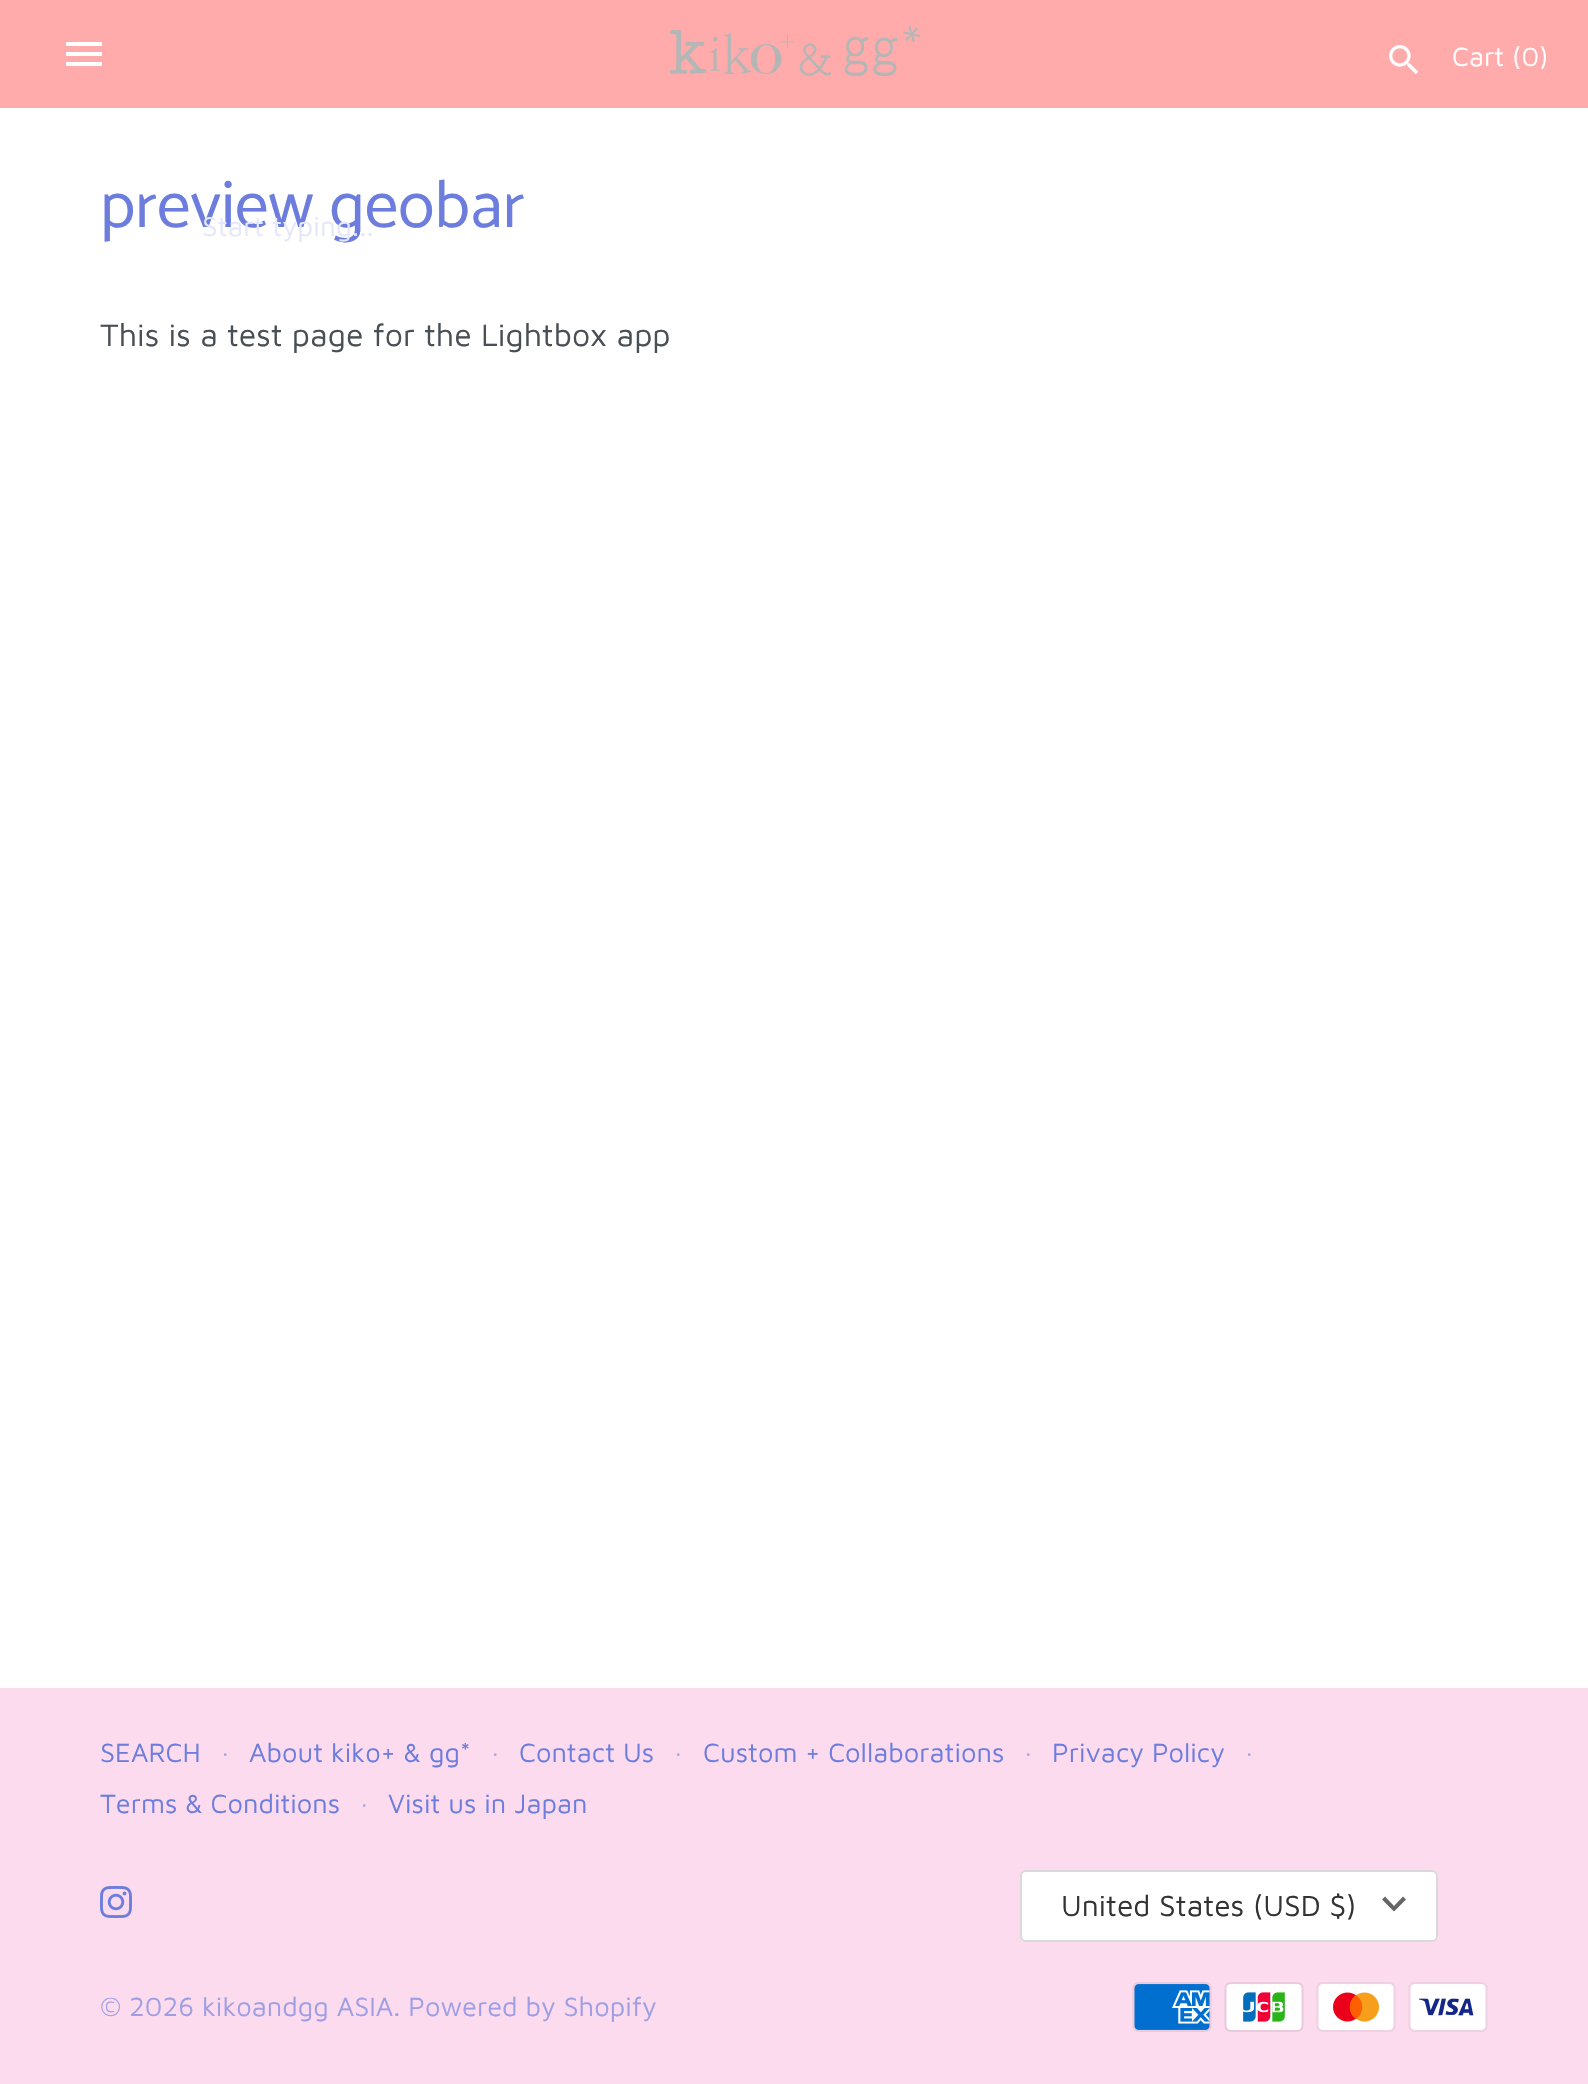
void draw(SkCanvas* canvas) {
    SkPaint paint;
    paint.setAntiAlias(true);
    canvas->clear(0xFFFFFFFF);
    paint.setColor(0xFFFFABAB);
    canvas->drawRect(SkRect::MakeXYWH(0, 0, 1588, 108), paint);
    paint.setColor(0xFFFFFFFF);
    canvas->drawPath(SkPathBuilder().moveTo(66, 66).lineTo(102, 66).lineTo(102, 62).lineTo(66, 62).close().moveTo(66, 56).lineTo(102, 56).lineTo(102, 52).lineTo(66, 52).close().moveTo(66, 42).lineTo(66, 46).lineTo(102, 46).lineTo(102, 42).close().detach(), paint);
    canvas->drawImageRect(SkImages::DeferredFromEncodedData(SkData::MakeFromFileName("img1.png")), SkRect::MakeXYWH(670, 26, 250, 50), SkSamplingOptions());
    canvas->drawImageRect(SkImages::DeferredFromEncodedData(SkData::MakeFromFileName("img2.png")), SkRect::MakeXYWH(1389, 45, 29, 29), SkSamplingOptions());
    SkFont font1(fontMgr->matchFamilyStyle("Maven Pro", SkFontStyle::Normal()), 27.2f);
    font1.setSubpixel(true);
    canvas->drawString("Cart (0)", 1452, 66, font1, paint);
    SkFont font2(fontMgr->matchFamilyStyle("Catamaran", SkFontStyle::Normal()), 67.25f);
    font2.setSubpixel(true);
    paint.setColor(0xFF6C7DDE);
    canvas->drawString("preview geobar", 100, 227, font2, paint);
    SkFont font3(fontMgr->matchFamilyStyle("Maven Pro", SkFontStyle::Normal()), 28);
    font3.setSubpixel(true);
    paint.setColor(0xFFE5E8F9);
    canvas->drawString("Start typing...", 202, 236, font3, paint);
    SkFont font4(fontMgr->matchFamilyStyle("Maven Pro", SkFontStyle::Normal()), 32);
    font4.setSubpixel(true);
    paint.setColor(0xFF494F55);
    canvas->drawString("This is a test page for the Lightbox app", 100, 346, font4, paint);
    paint.setColor(0xFFFCDBEF);
    canvas->drawRect(SkRect::MakeXYWH(0, 1688, 1588, 396), paint);
    paint.setColor(0xFF6C7DDE);
    canvas->drawString("SEARCH", 100, 1762, font1, paint);
    paint.setColor(0xFF9E9EE4);
    canvas->drawString("·", 221, 1762, font1, paint);
    paint.setColor(0xFF6C7DDE);
    canvas->drawString("About kiko+ & gg*", 249, 1762, font1, paint);
    paint.setColor(0xFF9E9EE4);
    canvas->drawString("·", 491, 1762, font1, paint);
    paint.setColor(0xFF6C7DDE);
    canvas->drawString("Contact Us", 519, 1762, font1, paint);
    paint.setColor(0xFF9E9EE4);
    canvas->drawString("·", 674, 1762, font1, paint);
    paint.setColor(0xFF6C7DDE);
    canvas->drawString("Custom + Collaborations", 703, 1762, font1, paint);
    paint.setColor(0xFF9E9EE4);
    canvas->drawString("·", 1024, 1762, font1, paint);
    paint.setColor(0xFF6C7DDE);
    canvas->drawString("Privacy Policy", 1052, 1762, font1, paint);
    paint.setColor(0xFF9E9EE4);
    canvas->drawString("·", 1245, 1762, font1, paint);
    paint.setColor(0xFF6C7DDE);
    canvas->drawString("Terms & Conditions", 100, 1813, font1, paint);
    paint.setColor(0xFF9E9EE4);
    canvas->drawString("·", 360, 1813, font1, paint);
    paint.setColor(0xFF6C7DDE);
    canvas->drawString("Visit us in Japan", 388, 1813, font1, paint);
    canvas->drawImageRect(SkImages::DeferredFromEncodedData(SkData::MakeFromFileName("img3.png")), SkRect::MakeXYWH(100, 1886, 32, 32), SkSamplingOptions());
    paint.setColor(0xFFFFFFFF);
    canvas->drawRoundRect(SkRect::MakeXYWH(1020, 1870, 418, 72), 6, 6, paint);
    paint.setStyle(SkPaint::kStroke_Style);
    paint.setStrokeWidth(2);
    paint.setColor(0x26000000);
    canvas->drawRoundRect(SkRect::MakeXYWH(1021, 1871, 416, 70), 5, 5, paint);
    SkFont font5(fontMgr->matchFamilyStyle("Maven Pro", SkFontStyle::Normal()), 30);
    font5.setSubpixel(true);
    paint.setStyle(SkPaint::kFill_Style);
    paint.setColor(0xFF333333);
    canvas->drawString("United States (USD $)", 1061, 1916, font5, paint);
    paint.setColor(0xFF666666);
    canvas->drawPath(SkPathBuilder().moveTo(1385, 1896.5f).lineTo(1394, 1906).lineTo(1403, 1896.5f).lineTo(1406, 1899.5f).lineTo(1394, 1911.5f).lineTo(1382, 1899.5f).close().detach(), paint);
    paint.setColor(0xFF9E9EE4);
    canvas->drawString("© 2026 kikoandgg ASIA. Powered by Shopify", 100, 2016, font1, paint);
    canvas->drawImageRect(SkImages::DeferredFromEncodedData(SkData::MakeFromFileName("img4.png")), SkRect::MakeXYWH(1132, 1982, 80, 50), SkSamplingOptions());
    canvas->drawImageRect(SkImages::DeferredFromEncodedData(SkData::MakeFromFileName("img5.png")), SkRect::MakeXYWH(1224, 1982, 80, 50), SkSamplingOptions());
    canvas->drawImageRect(SkImages::DeferredFromEncodedData(SkData::MakeFromFileName("img6.png")), SkRect::MakeXYWH(1316, 1982, 80, 50), SkSamplingOptions());
    canvas->drawImageRect(SkImages::DeferredFromEncodedData(SkData::MakeFromFileName("img7.png")), SkRect::MakeXYWH(1408, 1982, 80, 50), SkSamplingOptions());
}
